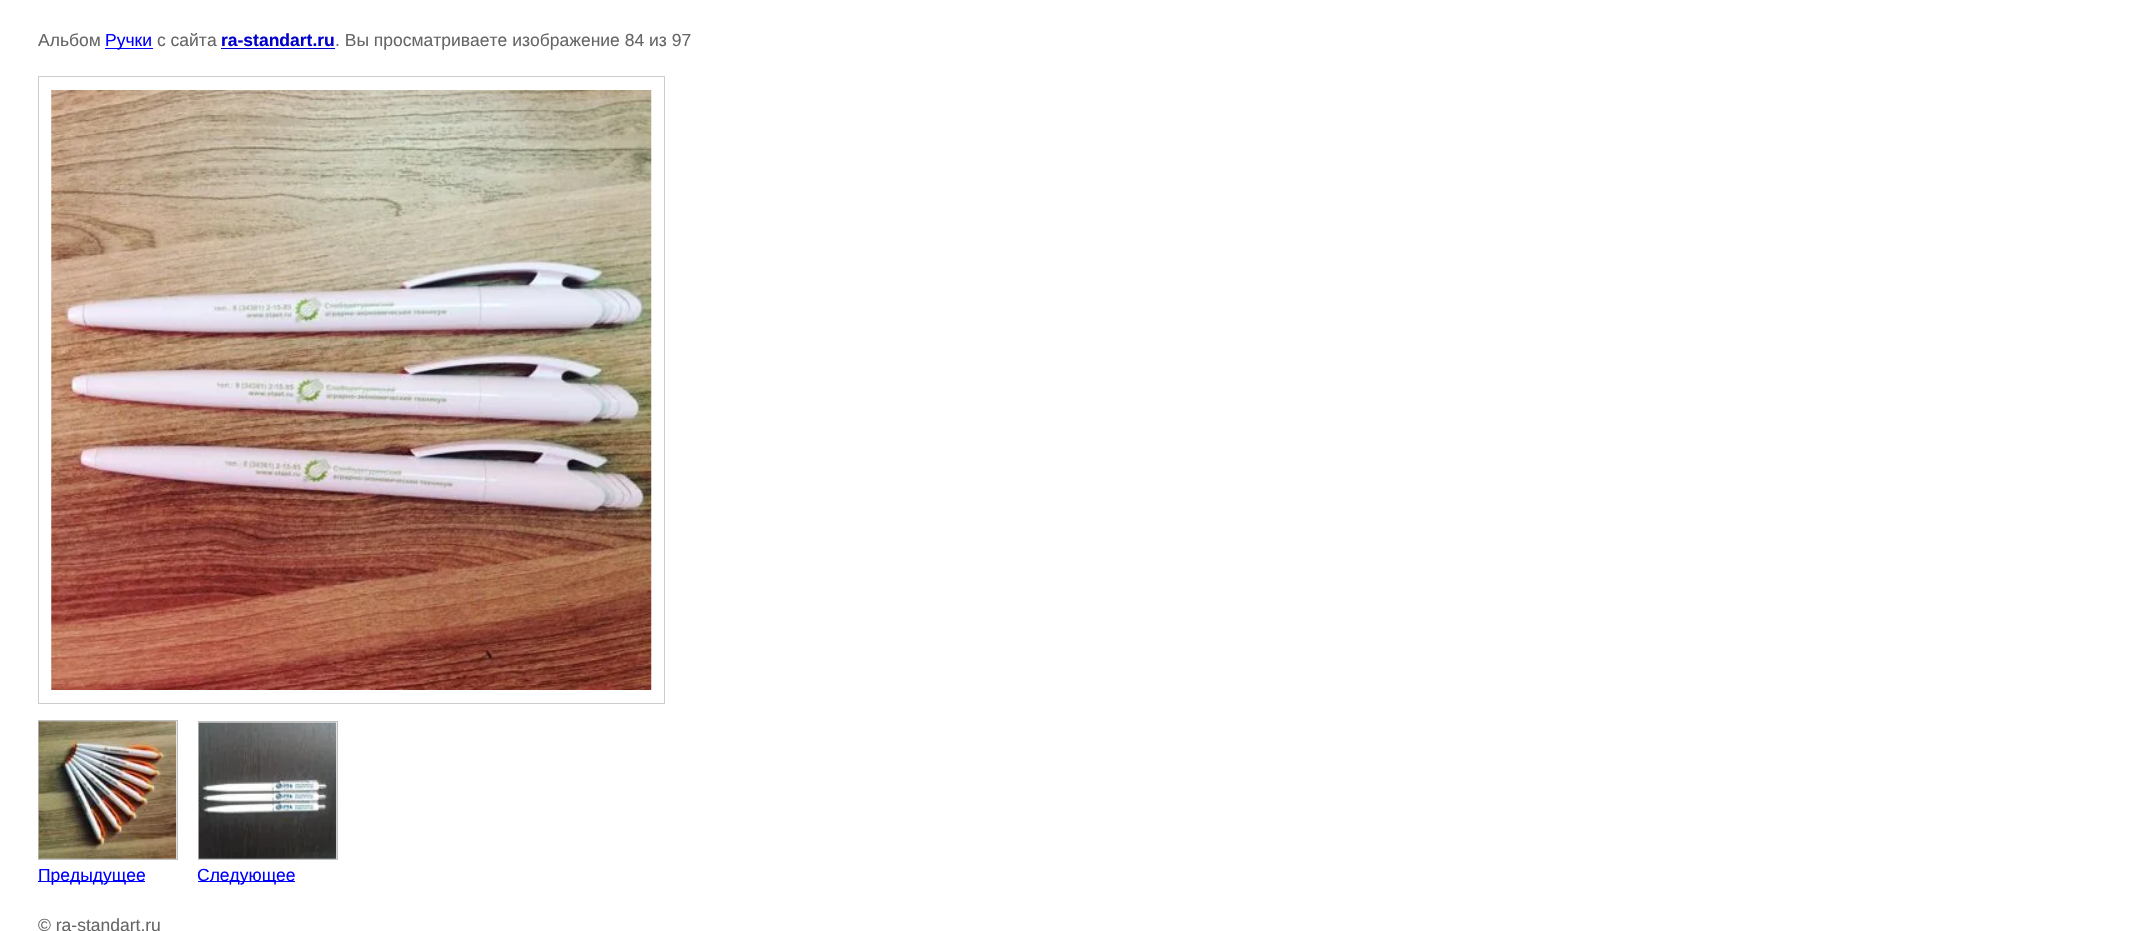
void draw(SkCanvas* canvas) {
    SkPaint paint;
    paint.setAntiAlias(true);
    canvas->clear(0xFFFFFFFF);
    SkFont font1(fontMgr->matchFamilyStyle("Liberation Sans", SkFontStyle::Normal()), 17.5f);
    font1.setSubpixel(true);
    paint.setColor(0xFF666666);
    canvas->drawString("Альбом", 38, 46, font1, paint);
    paint.setColor(0xFF0000FF);
    canvas->drawRect(SkRect::MakeXYWH(105, 48, 48, 1), paint);
    canvas->drawString("Ручки", 105, 46, font1, paint);
    paint.setColor(0xFF666666);
    canvas->drawString("с сайта", 157, 46, font1, paint);
    SkFont font2(fontMgr->matchFamilyStyle("Liberation Sans", SkFontStyle::Bold()), 17.5f);
    font2.setSubpixel(true);
    paint.setColor(0xFF0000CC);
    canvas->drawString("ra-standart.ru", 221, 46, font2, paint);
    canvas->drawRect(SkRect::MakeXYWH(221, 48, 114, 1), paint);
    paint.setColor(0xFF666666);
    canvas->drawString(". Вы просматриваете изображение 84 из 97", 335, 46, font1, paint);
    paint.setStyle(SkPaint::kStroke_Style);
    paint.setStrokeWidth(1);
    paint.setColor(0xFFCCCCCC);
    canvas->drawRect(SkRect::MakeXYWH(38.5f, 76.5f, 626, 627), paint);
    canvas->drawImageRect(SkImages::DeferredFromEncodedData(SkData::MakeFromFileName("img1.png")), SkRect::MakeXYWH(51, 90, 601, 600), SkSamplingOptions());
    paint.setColor(0xFFC0C0C0);
    canvas->drawRect(SkRect::MakeXYWH(38.5f, 720.5f, 139, 139), paint);
    canvas->drawImageRect(SkImages::DeferredFromEncodedData(SkData::MakeFromFileName("img2.png")), SkRect::MakeXYWH(38, 721, 139, 138), SkSamplingOptions());
    paint.setStyle(SkPaint::kFill_Style);
    paint.setColor(0xFF0000FF);
    canvas->drawRect(SkRect::MakeXYWH(38, 881, 107, 1), paint);
    canvas->drawString("Предыдущее", 38, 881, font1, paint);
    paint.setStyle(SkPaint::kStroke_Style);
    paint.setColor(0xFFC0C0C0);
    canvas->drawRect(SkRect::MakeXYWH(198.5f, 721.5f, 139, 138), paint);
    canvas->drawImageRect(SkImages::DeferredFromEncodedData(SkData::MakeFromFileName("img3.png")), SkRect::MakeXYWH(198, 722, 139, 137), SkSamplingOptions());
    paint.setStyle(SkPaint::kFill_Style);
    paint.setColor(0xFF0000FF);
    canvas->drawRect(SkRect::MakeXYWH(198, 881, 97, 1), paint);
    canvas->drawString("Следующее", 197, 881, font1, paint);
    paint.setColor(0xFF666666);
    canvas->drawString("© ra-standart.ru", 38, 931, font1, paint);
}
